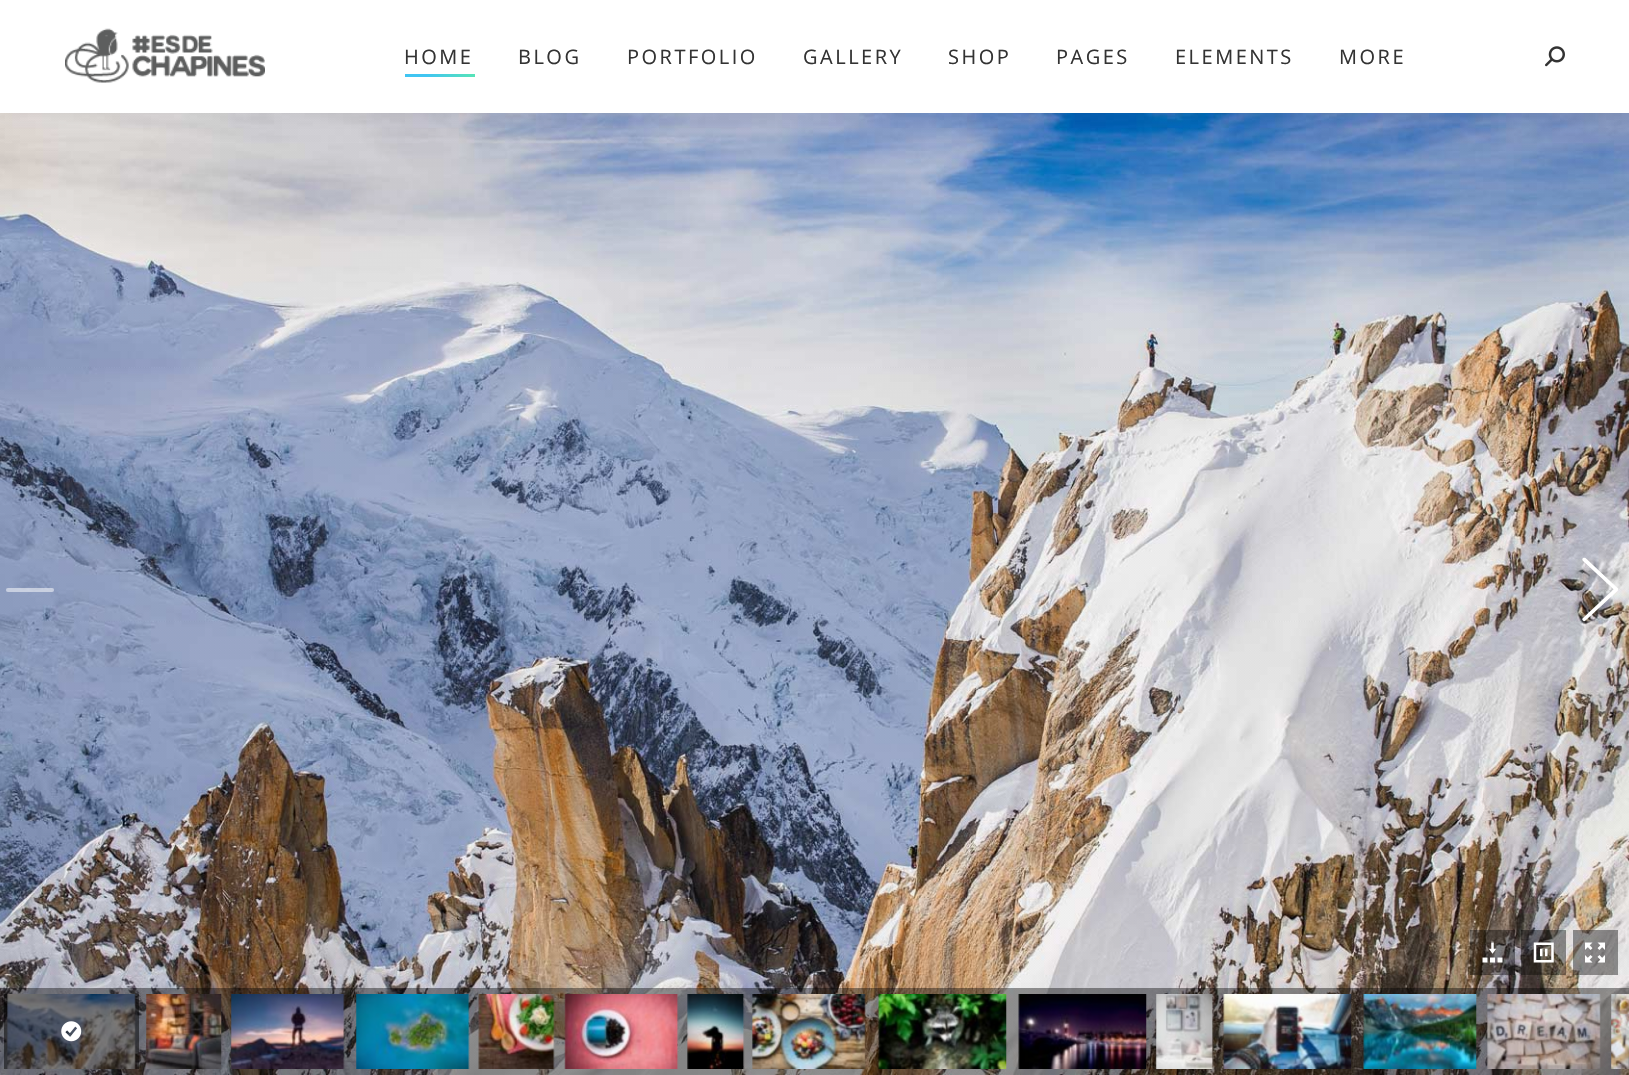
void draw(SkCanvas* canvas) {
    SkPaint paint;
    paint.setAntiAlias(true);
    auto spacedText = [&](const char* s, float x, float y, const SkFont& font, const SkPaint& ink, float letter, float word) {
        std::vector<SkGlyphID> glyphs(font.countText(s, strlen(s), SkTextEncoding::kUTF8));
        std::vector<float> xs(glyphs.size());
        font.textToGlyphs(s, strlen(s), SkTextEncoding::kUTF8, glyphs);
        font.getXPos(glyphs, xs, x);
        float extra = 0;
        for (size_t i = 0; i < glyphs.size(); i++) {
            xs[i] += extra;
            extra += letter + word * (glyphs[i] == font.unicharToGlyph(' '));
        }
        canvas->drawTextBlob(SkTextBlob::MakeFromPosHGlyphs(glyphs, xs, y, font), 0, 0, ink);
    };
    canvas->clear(0xFFFFFFFF);
    canvas->drawImageRect(SkImages::DeferredFromEncodedData(SkData::MakeFromFileName("img3.png")), SkRect::MakeXYWH(0, 113, 1629, 962), SkSamplingOptions());
    canvas->drawImageRect(SkImages::DeferredFromEncodedData(SkData::MakeFromFileName("img4.png")), SkRect::MakeXYWH(0, 113, 1629, 962), SkSamplingOptions());
    paint.setColor(0x12000000);
    paint.setMaskFilter(SkMaskFilter::MakeBlur(kNormal_SkBlurStyle, 9.5f));
    canvas->drawRect(SkRect::MakeXYWH(-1, -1, 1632, 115), paint);
    paint.setMaskFilter(nullptr);
    paint.setColor(0xFFFFFFFF);
    canvas->drawRect(SkRect::MakeXYWH(0, 0, 1629, 113), paint);
    canvas->drawImageRect(SkImages::DeferredFromEncodedData(SkData::MakeFromFileName("img1.png")), SkRect::MakeXYWH(65, 28, 200, 55), SkSamplingOptions());
    SkFont font1(fontMgr->matchFamilyStyle("Open Sans", SkFontStyle::Normal()), 20);
    font1.setSubpixel(true);
    paint.setColor(0xFF333333);
    spacedText("HOME", 404, 64, font1, paint, 2.5f, 0);
    {
        const SkColor colors[] = {0xFF40C5F2, 0xFF57E4B7};
        const float stops[] = {0.3f, 1};
        const SkPoint ends[] = {{405, 75}, {475, 75}};
        paint.setShader(SkGradientShader::MakeLinear(ends, colors, stops, 2, SkTileMode::kClamp));
        paint.setAlpha(255);
    }
    canvas->drawRect(SkRect::MakeXYWH(405, 74, 70, 3), paint);
    paint.setShader(nullptr);
    paint.setColor(0xFF333333);
    spacedText("BLOG", 518, 64, font1, paint, 2.5f, 0);
    spacedText("PORTFOLIO", 627, 64, font1, paint, 2.5f, 0);
    spacedText("GALLERY", 803, 64, font1, paint, 2.5f, 0);
    spacedText("SHOP", 948, 64, font1, paint, 2.5f, 0);
    spacedText("PAGES", 1056, 64, font1, paint, 2.5f, 0);
    spacedText("ELEMENTS", 1175, 64, font1, paint, 2.5f, 0);
    spacedText("MORE", 1339, 64, font1, paint, 2.5f, 0);
    canvas->drawImageRect(SkImages::DeferredFromEncodedData(SkData::MakeFromFileName("img2.png")), SkRect::MakeXYWH(1545, 46, 20, 21), SkSamplingOptions());
    paint.setColor(0x4DFFFFFF);
    canvas->drawRoundRect(SkRect::MakeXYWH(6, 588, 48, 4), 2, 2, paint);
    canvas->drawRoundRect(SkRect::MakeXYWH(6, 588, 48, 4), 2, 2, paint);
    paint.setColor(0x4D000000);
    paint.setMaskFilter(SkMaskFilter::MakeBlur(kNormal_SkBlurStyle, 3));
    canvas->drawRoundRect(SkRect::MakeXYWH(1576, 573, 48, 4), 2, 2, paint);
    paint.setMaskFilter(nullptr);
    paint.setColor(0xFFFFFFFF);
    canvas->drawPath(SkPathBuilder().moveTo(1585.5f, 558).lineTo(1617.5f, 588).cubicTo(1618, 588.5f, 1618, 590, 1617.5f, 590.5f).cubicTo(1617, 591.5f, 1615.5f, 591.5f, 1615, 590.5f).lineTo(1583, 561).cubicTo(1582, 560, 1582, 559, 1583, 558).cubicTo(1583.5f, 557.5f, 1584.5f, 557.5f, 1585.5f, 558).close().detach(), paint);
    paint.setColor(0x4D000000);
    paint.setMaskFilter(SkMaskFilter::MakeBlur(kNormal_SkBlurStyle, 3));
    canvas->drawRoundRect(SkRect::MakeXYWH(1576, 603, 48, 4), 2, 2, paint);
    paint.setMaskFilter(nullptr);
    paint.setColor(0xFFFFFFFF);
    canvas->drawPath(SkPathBuilder().moveTo(1583, 618).lineTo(1615, 588).cubicTo(1615.5f, 587.5f, 1617, 587.5f, 1617.5f, 588).cubicTo(1618, 589, 1618, 590, 1617.5f, 591).lineTo(1585.5f, 620.5f).cubicTo(1584.5f, 621.5f, 1583.5f, 621.5f, 1583, 620.5f).cubicTo(1582, 620, 1582, 618.5f, 1583, 618).close().detach(), paint);
    paint.setColor(0x66000000);
    canvas->drawRect(SkRect::MakeXYWH(1470, 930, 45, 45), paint);
    canvas->drawImageRect(SkImages::DeferredFromEncodedData(SkData::MakeFromFileName("img5.png")), SkRect::MakeXYWH(1482, 942, 21, 21), SkSamplingOptions());
    canvas->drawRect(SkRect::MakeXYWH(1521, 930, 45, 45), paint);
    canvas->drawImageRect(SkImages::DeferredFromEncodedData(SkData::MakeFromFileName("img6.png")), SkRect::MakeXYWH(1533, 942, 21, 21), SkSamplingOptions());
    canvas->drawRect(SkRect::MakeXYWH(1573, 930, 45, 45), paint);
    canvas->drawImageRect(SkImages::DeferredFromEncodedData(SkData::MakeFromFileName("img7.png")), SkRect::MakeXYWH(1585, 942, 20, 21), SkSamplingOptions());
    canvas->drawRect(SkRect::MakeXYWH(0, 988, 1629, 87), paint);
    canvas->drawImageRect(SkImages::DeferredFromEncodedData(SkData::MakeFromFileName("img8.png")), SkRect::MakeXYWH(7, 994, 129, 75), SkSamplingOptions());
    paint.setColor(0x80000000);
    canvas->drawRect(SkRect::MakeXYWH(4, 994, 135, 75), paint);
    canvas->drawImageRect(SkImages::DeferredFromEncodedData(SkData::MakeFromFileName("img9.png")), SkRect::MakeXYWH(61, 1021, 21, 21), SkSamplingOptions());
    canvas->drawImageRect(SkImages::DeferredFromEncodedData(SkData::MakeFromFileName("img10.png")), SkRect::MakeXYWH(146, 994, 76, 75), SkSamplingOptions());
    canvas->drawImageRect(SkImages::DeferredFromEncodedData(SkData::MakeFromFileName("img11.png")), SkRect::MakeXYWH(231, 994, 114, 75), SkSamplingOptions());
    canvas->drawImageRect(SkImages::DeferredFromEncodedData(SkData::MakeFromFileName("img12.png")), SkRect::MakeXYWH(356, 994, 114, 75), SkSamplingOptions());
    canvas->drawImageRect(SkImages::DeferredFromEncodedData(SkData::MakeFromFileName("img13.png")), SkRect::MakeXYWH(478, 994, 77, 75), SkSamplingOptions());
    canvas->drawImageRect(SkImages::DeferredFromEncodedData(SkData::MakeFromFileName("img14.png")), SkRect::MakeXYWH(564, 994, 115, 75), SkSamplingOptions());
    canvas->drawImageRect(SkImages::DeferredFromEncodedData(SkData::MakeFromFileName("img15.png")), SkRect::MakeXYWH(687, 994, 58, 75), SkSamplingOptions());
    canvas->drawImageRect(SkImages::DeferredFromEncodedData(SkData::MakeFromFileName("img16.png")), SkRect::MakeXYWH(752, 994, 114, 75), SkSamplingOptions());
    canvas->drawImageRect(SkImages::DeferredFromEncodedData(SkData::MakeFromFileName("img17.png")), SkRect::MakeXYWH(878, 994, 129, 75), SkSamplingOptions());
    canvas->drawImageRect(SkImages::DeferredFromEncodedData(SkData::MakeFromFileName("img18.png")), SkRect::MakeXYWH(1018, 994, 129, 75), SkSamplingOptions());
    canvas->drawImageRect(SkImages::DeferredFromEncodedData(SkData::MakeFromFileName("img19.png")), SkRect::MakeXYWH(1156, 994, 58, 75), SkSamplingOptions());
    canvas->drawImageRect(SkImages::DeferredFromEncodedData(SkData::MakeFromFileName("img20.png")), SkRect::MakeXYWH(1223, 994, 129, 75), SkSamplingOptions());
    canvas->drawImageRect(SkImages::DeferredFromEncodedData(SkData::MakeFromFileName("img21.png")), SkRect::MakeXYWH(1363, 994, 114, 75), SkSamplingOptions());
    canvas->drawImageRect(SkImages::DeferredFromEncodedData(SkData::MakeFromFileName("img22.png")), SkRect::MakeXYWH(1487, 994, 114, 75), SkSamplingOptions());
    canvas->drawImageRect(SkImages::DeferredFromEncodedData(SkData::MakeFromFileName("img23.png")), SkRect::MakeXYWH(1611, 994, 18, 75), SkSamplingOptions());
}
